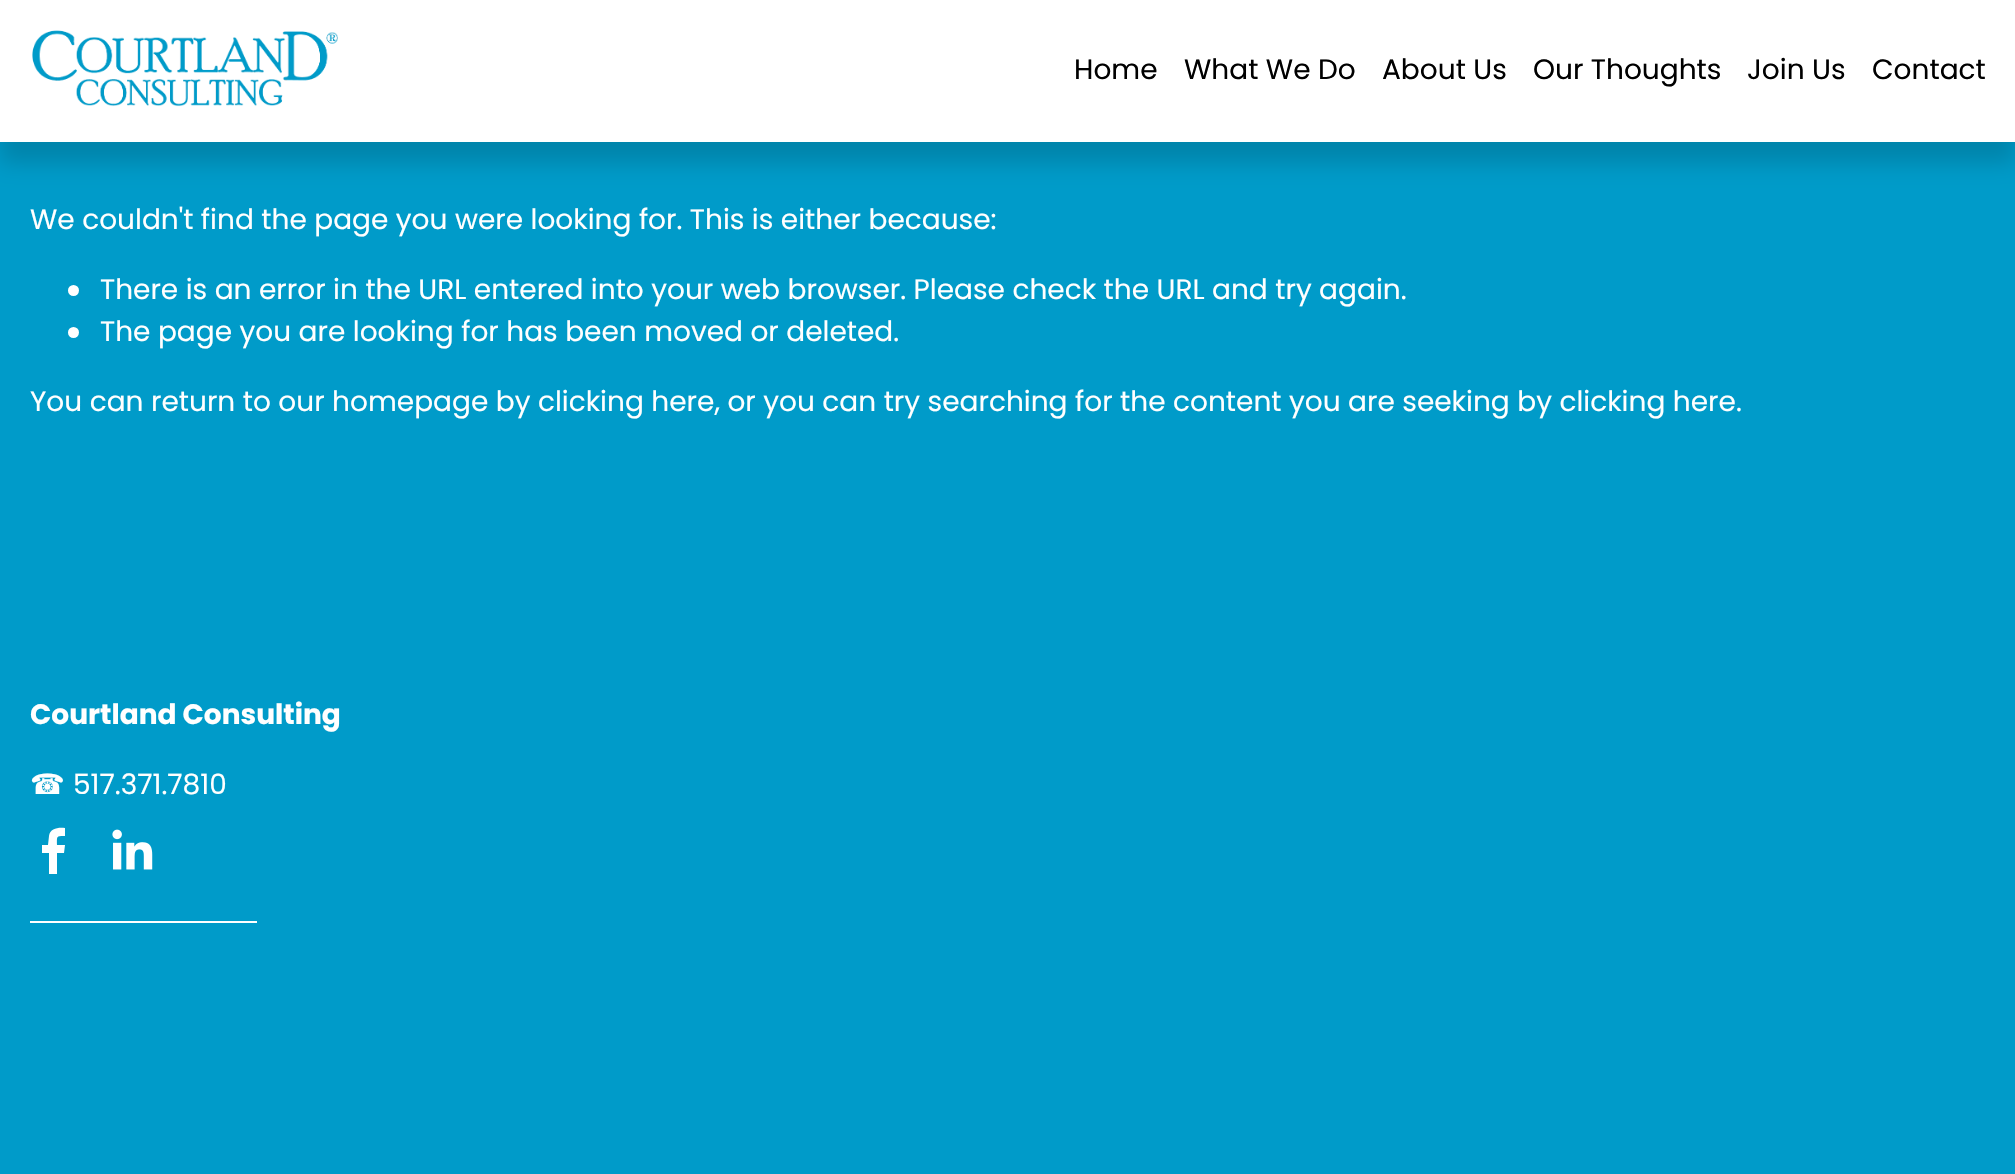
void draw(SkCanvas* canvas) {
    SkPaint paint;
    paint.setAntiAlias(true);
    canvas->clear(0xFF009BC9);
    paint.setColor(0xFF0084AB);
    paint.setMaskFilter(SkMaskFilter::MakeBlur(kNormal_SkBlurStyle, 10.5f));
    canvas->drawRect(SkRect::MakeXYWH(0, 21, 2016, 142), paint);
    paint.setMaskFilter(nullptr);
    paint.setColor(0xFFFFFFFF);
    canvas->drawRect(SkRect::MakeXYWH(0, 0, 2015, 142), paint);
    canvas->drawImageRect(SkImages::DeferredFromEncodedData(SkData::MakeFromFileName("img1.png")), SkRect::MakeXYWH(32, 30, 306, 77), SkSamplingOptions());
    SkFont font1(fontMgr->matchFamilyStyle("Poppins", SkFontStyle::Normal()), 28);
    font1.setSubpixel(true);
    paint.setColor(0xFF000000);
    canvas->drawString("Home", 1074, 79, font1, paint);
    canvas->drawString("What We Do", 1184, 79, font1, paint);
    canvas->drawString("About Us", 1382, 79, font1, paint);
    canvas->drawString("Our Thoughts", 1533, 79, font1, paint);
    canvas->drawString("Join Us", 1747, 79, font1, paint);
    canvas->drawString("Contact", 1872, 79, font1, paint);
    paint.setColor(0xFFFFFFFF);
    canvas->drawString("We couldn't find the page you were looking for. This is either because:", 30, 229, font1, paint);
    canvas->drawCircle(73.5f, 290.5f, 5.5f, paint);
    canvas->drawString("There is an error in the URL entered into your web browser. Please check the URL and try again.", 100, 299, font1, paint);
    canvas->drawCircle(73.5f, 332.5f, 5.5f, paint);
    canvas->drawString("The page you are looking for has been moved or deleted.", 100, 341, font1, paint);
    canvas->drawString("You can return to our homepage by clicking here, or you can try searching for the content you are seeking by clicking here.", 30, 411, font1, paint);
    SkFont font2(fontMgr->matchFamilyStyle("Poppins", SkFontStyle::Bold()), 28);
    font2.setSubpixel(true);
    canvas->drawString("Courtland Consulting", 30, 724, font2, paint);
    SkFont font3(fontMgr->matchFamilyStyle("DejaVu Sans", SkFontStyle::Normal()), 28);
    font3.setSubpixel(true);
    canvas->drawString("☎", 30, 794, font3, paint);
    canvas->drawString("517.371.7810", 73, 794, font1, paint);
    canvas->drawPath(SkPathBuilder().moveTo(57, 874).lineTo(57, 853).lineTo(64, 853).lineTo(65, 845).lineTo(57, 845).cubicTo(57, 836, 56, 836, 65, 836).lineTo(65, 828).cubicTo(59, 827, 50, 828, 49, 836).lineTo(48, 845).lineTo(42, 845).lineTo(42, 853).lineTo(49, 853).lineTo(49, 874).close().detach(), paint);
    canvas->drawImageRect(SkImages::DeferredFromEncodedData(SkData::MakeFromFileName("img2.png")), SkRect::MakeXYWH(112, 829, 41, 41), SkSamplingOptions());
    canvas->drawRect(SkRect::MakeXYWH(30, 921, 227, 2), paint);
}
